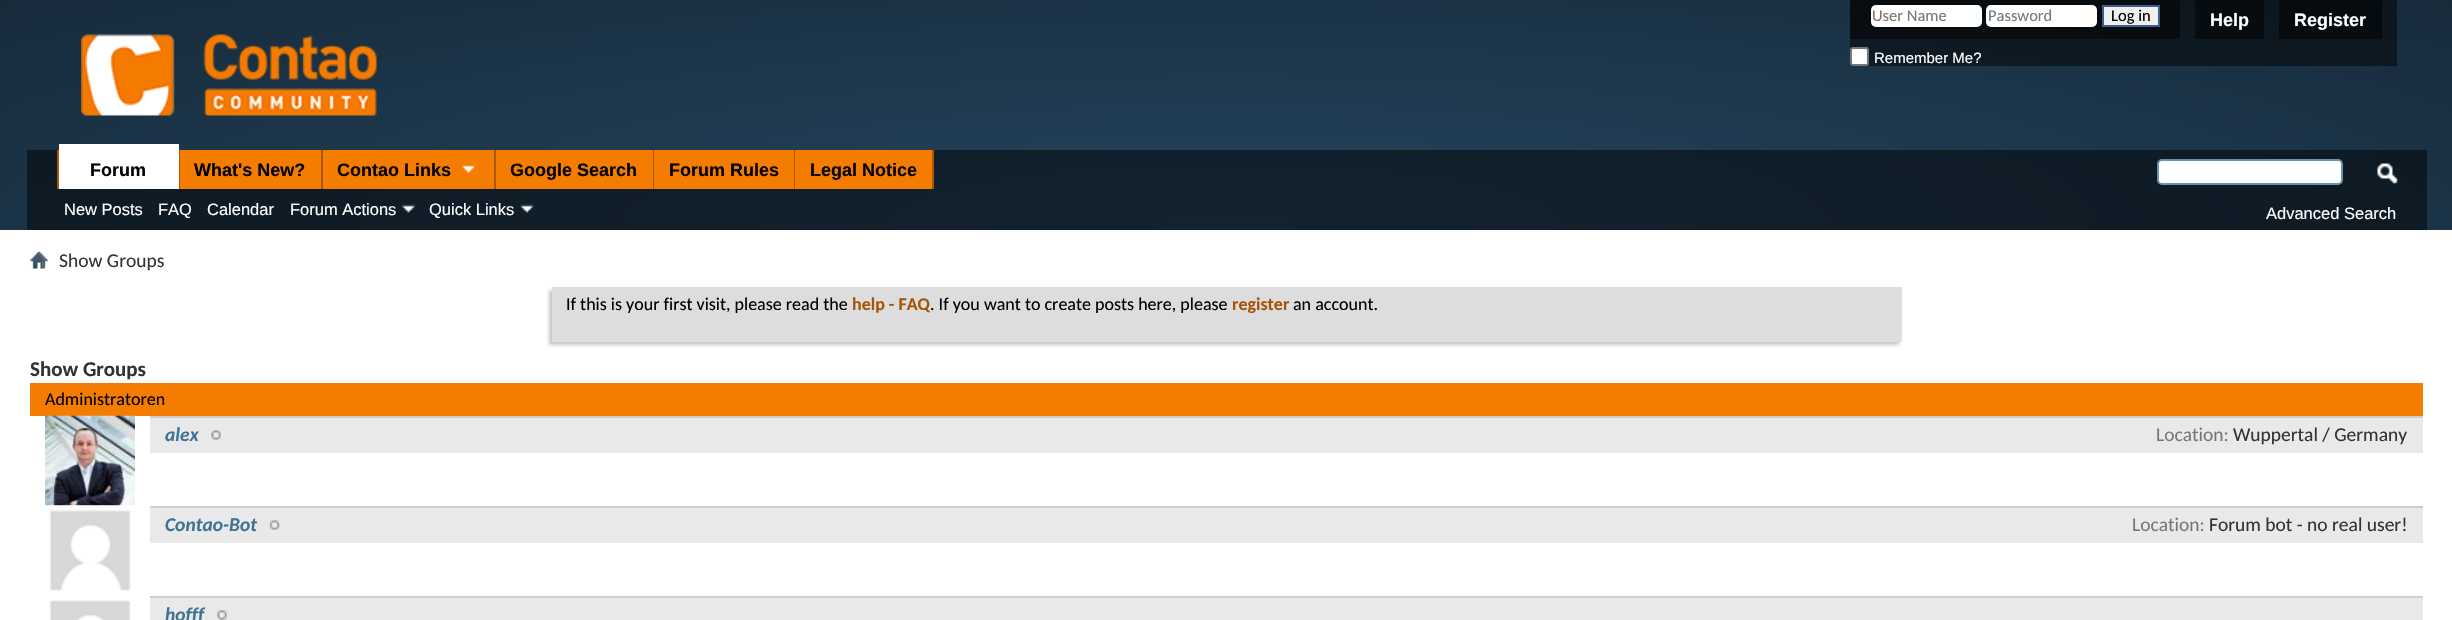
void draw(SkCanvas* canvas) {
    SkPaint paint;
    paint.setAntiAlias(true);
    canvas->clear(0xFFFFFFFF);
    {
        const SkColor colors[] = {0xFF25455F, 0xFF172B3B};
        const float stops[] = {0, 1};
        SkMatrix m = SkMatrix::Translate(1226, 230).preScale(1734, 325);
        paint.setShader(SkGradientShader::MakeRadial({0, 0}, 1, colors, stops, 2, SkTileMode::kClamp, 0, &m));
        paint.setAlpha(255);
    }
    canvas->drawRect(SkRect::MakeXYWH(0, 0, 2452, 230), paint);
    {
        const SkColor colors[] = {0xFF132330, 0xFF0C161E};
        const float stops[] = {0, 1};
        SkMatrix m = SkMatrix::Translate(1226, 230).preScale(1734, 325);
        paint.setShader(SkGradientShader::MakeRadial({0, 0}, 1, colors, stops, 2, SkTileMode::kClamp, 0, &m));
        paint.setAlpha(255);
    }
    canvas->drawRect(SkRect::MakeXYWH(27, 150, 2400, 80), paint);
    canvas->drawRect(SkRect::MakeXYWH(1850, 0, 547, 66), paint);
    {
        const SkColor colors[] = {0xFF0A1218, 0xFF060B0F};
        const float stops[] = {0, 1};
        SkMatrix m = SkMatrix::Translate(1226, 230).preScale(1734, 325);
        paint.setShader(SkGradientShader::MakeRadial({0, 0}, 1, colors, stops, 2, SkTileMode::kClamp, 0, &m));
        paint.setAlpha(255);
    }
    canvas->drawRect(SkRect::MakeXYWH(1850, 0, 330, 39), paint);
    canvas->drawImageRect(SkImages::DeferredFromEncodedData(SkData::MakeFromFileName("img1.png")), SkRect::MakeXYWH(81, 34, 296, 82), SkSamplingOptions());
    paint.setShader(nullptr);
    paint.setColor(0xFFFFFFFF);
    canvas->drawRoundRect(SkRect::MakeXYWH(1871, 5, 111, 22), 5, 5, paint);
    SkFont font1(fontMgr->matchFamilyStyle("Carlito", SkFontStyle::Normal()), 16.5f);
    font1.setSubpixel(true);
    paint.setColor(0xFF777777);
    canvas->drawString("User Name", 1872, 21, font1, paint);
    paint.setColor(0xFFFFFFFF);
    canvas->drawRoundRect(SkRect::MakeXYWH(1986, 5, 111, 22), 5, 5, paint);
    paint.setColor(0xFF777777);
    canvas->drawString("Password", 1988, 21, font1, paint);
    paint.setColor(0xFFEFEFEF);
    canvas->drawRect(SkRect::MakeXYWH(2103, 6, 56, 20), paint);
    paint.setStyle(SkPaint::kStroke_Style);
    paint.setStrokeWidth(2);
    paint.setColor(0xFF415D8D);
    canvas->drawRect(SkRect::MakeXYWH(2103, 6, 56, 20), paint);
    paint.setStyle(SkPaint::kFill_Style);
    paint.setColor(0xFF000000);
    canvas->drawString("Log in", 2111, 21, font1, paint);
    paint.setColor(0xFFFFFFFF);
    canvas->drawRoundRect(SkRect::MakeXYWH(1851, 48, 17, 17), 2, 2, paint);
    paint.setStyle(SkPaint::kStroke_Style);
    paint.setColor(0xFF767676);
    canvas->drawRoundRect(SkRect::MakeXYWH(1851, 48, 17, 17), 2, 2, paint);
    SkFont font2(fontMgr->matchFamilyStyle("Liberation Sans", SkFontStyle::Normal()), 15);
    font2.setSubpixel(true);
    paint.setStyle(SkPaint::kFill_Style);
    paint.setColor(0xFFFFFFFF);
    canvas->drawString("Remember Me?", 1874, 63, font2, paint);
    paint.setColor(0xFF060C10);
    canvas->drawRect(SkRect::MakeXYWH(2195, 0, 69, 39), paint);
    SkFont font3(fontMgr->matchFamilyStyle("Liberation Sans", SkFontStyle::Bold()), 18);
    font3.setSubpixel(true);
    paint.setColor(0xFFFFFFFF);
    canvas->drawString("Help", 2210, 26, font3, paint);
    paint.setColor(0xFF060B10);
    canvas->drawRect(SkRect::MakeXYWH(2279, 0, 103, 39), paint);
    paint.setColor(0xFFFFFFFF);
    canvas->drawString("Register", 2294, 26, font3, paint);
    paint.setColor(0xFFAC5505);
    canvas->drawRect(SkRect::MakeXYWH(179, 150, 1, 39), paint);
    canvas->drawRect(SkRect::MakeXYWH(57, 150, 2, 39), paint);
    paint.setColor(0xFFFFFFFF);
    canvas->drawRect(SkRect::MakeXYWH(59, 144, 120, 45), paint);
    paint.setColor(0xFF000000);
    canvas->drawString("Forum", 90, 176, font3, paint);
    paint.setColor(0xFFAC5505);
    canvas->drawRect(SkRect::MakeXYWH(321, 150, 2, 39), paint);
    paint.setColor(0xFFF47C00);
    canvas->drawRect(SkRect::MakeXYWH(180, 150, 141, 39), paint);
    paint.setColor(0xFF000000);
    canvas->drawString("What's New?", 194, 176, font3, paint);
    paint.setColor(0xFFAC5505);
    canvas->drawRect(SkRect::MakeXYWH(494, 150, 2, 39), paint);
    paint.setColor(0xFFF47C00);
    canvas->drawRect(SkRect::MakeXYWH(323, 150, 171, 39), paint);
    paint.setColor(0xFF000000);
    canvas->drawString("Contao Links", 337, 176, font3, paint);
    canvas->drawImageRect(SkImages::DeferredFromEncodedData(SkData::MakeFromFileName("img2.png")), SkRect::MakeXYWH(461, 164, 15, 9), SkSamplingOptions());
    paint.setColor(0xFFAC5505);
    canvas->drawRect(SkRect::MakeXYWH(653, 150, 1, 39), paint);
    paint.setColor(0xFFF47C00);
    canvas->drawRect(SkRect::MakeXYWH(496, 150, 157, 39), paint);
    paint.setColor(0xFF000000);
    canvas->drawString("Google Search", 510, 176, font3, paint);
    paint.setColor(0xFFAC5505);
    canvas->drawRect(SkRect::MakeXYWH(794, 150, 1, 39), paint);
    paint.setColor(0xFFF47C00);
    canvas->drawRect(SkRect::MakeXYWH(654, 150, 140, 39), paint);
    paint.setColor(0xFF000000);
    canvas->drawString("Forum Rules", 669, 176, font3, paint);
    paint.setColor(0xFFAC5505);
    canvas->drawRect(SkRect::MakeXYWH(932, 150, 2, 39), paint);
    paint.setColor(0xFFF47C00);
    canvas->drawRect(SkRect::MakeXYWH(795, 150, 137, 39), paint);
    paint.setColor(0xFF000000);
    canvas->drawString("Legal Notice", 810, 176, font3, paint);
    SkFont font4(fontMgr->matchFamilyStyle("Liberation Sans", SkFontStyle::Normal()), 16.5f);
    font4.setSubpixel(true);
    paint.setColor(0xFFFFFFFF);
    canvas->drawString("New Posts", 64, 215, font4, paint);
    canvas->drawString("FAQ", 158, 215, font4, paint);
    canvas->drawString("Calendar", 207, 215, font4, paint);
    canvas->drawString("Forum Actions", 290, 215, font4, paint);
    canvas->drawImageRect(SkImages::DeferredFromEncodedData(SkData::MakeFromFileName("img3.png")), SkRect::MakeXYWH(401, 204, 15, 9), SkSamplingOptions());
    canvas->drawString("Quick Links", 429, 215, font4, paint);
    canvas->drawImageRect(SkImages::DeferredFromEncodedData(SkData::MakeFromFileName("img4.png")), SkRect::MakeXYWH(520, 204, 14, 9), SkSamplingOptions());
    canvas->drawRoundRect(SkRect::MakeXYWH(2158, 160, 184, 24), 4, 4, paint);
    paint.setStyle(SkPaint::kStroke_Style);
    paint.setColor(0xFF6B91AB);
    canvas->drawRoundRect(SkRect::MakeXYWH(2158, 160, 184, 24), 4, 4, paint);
    canvas->drawImageRect(SkImages::DeferredFromEncodedData(SkData::MakeFromFileName("img5.png")), SkRect::MakeXYWH(2377, 163, 21, 22), SkSamplingOptions());
    paint.setStyle(SkPaint::kFill_Style);
    paint.setColor(0xFFFFFFFF);
    canvas->drawString("Advanced Search", 2266, 219, font4, paint);
    canvas->drawImageRect(SkImages::DeferredFromEncodedData(SkData::MakeFromFileName("img6.png")), SkRect::MakeXYWH(30, 251, 18, 18), SkSamplingOptions());
    SkFont font5(fontMgr->matchFamilyStyle("Carlito", SkFontStyle::Normal()), 19.5f);
    font5.setSubpixel(true);
    paint.setColor(0xFF333333);
    canvas->drawString("Show Groups", 59, 267, font5, paint);
    paint.setColor(0xFFC8C8C8);
    paint.setMaskFilter(SkMaskFilter::MakeBlur(kNormal_SkBlurStyle, 1.5f));
    canvas->drawRect(SkRect::MakeXYWH(549, 290, 1350, 55), paint);
    paint.setMaskFilter(nullptr);
    paint.setColor(0xFFDDDDDD);
    canvas->drawRect(SkRect::MakeXYWH(552, 287, 1350, 55), paint);
    SkFont font6(fontMgr->matchFamilyStyle("Carlito", SkFontStyle::Normal()), 18);
    font6.setSubpixel(true);
    paint.setColor(0xFF000000);
    canvas->drawString("If this is your first visit, please read the", 566, 310, font6, paint);
    SkFont font7(fontMgr->matchFamilyStyle("Carlito", SkFontStyle::Bold()), 18);
    font7.setSubpixel(true);
    paint.setColor(0xFFA35609);
    canvas->drawString("help - FAQ", 852, 310, font7, paint);
    paint.setColor(0xFF000000);
    canvas->drawString(". If you want to create posts here, please", 930, 310, font6, paint);
    paint.setColor(0xFFA35609);
    canvas->drawString("register", 1232, 310, font7, paint);
    paint.setColor(0xFF000000);
    canvas->drawString("an account.", 1293, 310, font6, paint);
    SkFont font8(fontMgr->matchFamilyStyle("Carlito", SkFontStyle::Bold()), 21);
    font8.setSubpixel(true);
    paint.setColor(0xFF333333);
    canvas->drawString("Show Groups", 30, 376, font8, paint);
    paint.setColor(0xFFF47C00);
    canvas->drawRect(SkRect::MakeXYWH(30, 383, 2393, 33), paint);
    paint.setColor(0xFF000000);
    canvas->drawString("Administratoren", 45, 405, font6, paint);
    canvas->drawImageRect(SkImages::DeferredFromEncodedData(SkData::MakeFromFileName("img7.png")), SkRect::MakeXYWH(45, 415, 90, 91), SkSamplingOptions());
    paint.setColor(0xFFE9E9E9);
    canvas->drawRect(SkRect::MakeXYWH(150, 418, 2273, 35), paint);
    paint.setColor(0xFFCECECE);
    canvas->drawRect(SkRect::MakeXYWH(150, 416, 2273, 2), paint);
    SkFont font9(fontMgr->matchFamilyStyle("Carlito", SkFontStyle::BoldItalic()), 19.5f);
    font9.setSubpixel(true);
    paint.setColor(0xFF417394);
    canvas->drawString("alex", 165, 441, font9, paint);
    canvas->drawImageRect(SkImages::DeferredFromEncodedData(SkData::MakeFromFileName("img8.png")), SkRect::MakeXYWH(211, 430, 10, 10), SkSamplingOptions());
    paint.setColor(0xFF777777);
    canvas->drawString("Location:", 2156, 441, font5, paint);
    paint.setColor(0xFF333333);
    canvas->drawString("Wuppertal / Germany", 2233, 441, font5, paint);
    canvas->drawImageRect(SkImages::DeferredFromEncodedData(SkData::MakeFromFileName("img9.png")), SkRect::MakeXYWH(45, 505, 86, 86), SkSamplingOptions());
    paint.setColor(0xFFE9E9E9);
    canvas->drawRect(SkRect::MakeXYWH(150, 508, 2273, 35), paint);
    paint.setColor(0xFFCECECE);
    canvas->drawRect(SkRect::MakeXYWH(150, 506, 2273, 2), paint);
    paint.setColor(0xFF417394);
    canvas->drawString("Contao-Bot", 165, 531, font9, paint);
    canvas->drawImageRect(SkImages::DeferredFromEncodedData(SkData::MakeFromFileName("img10.png")), SkRect::MakeXYWH(269, 520, 11, 10), SkSamplingOptions());
    paint.setColor(0xFF777777);
    canvas->drawString("Location:", 2132, 531, font5, paint);
    paint.setColor(0xFF333333);
    canvas->drawString("Forum bot - no real user!", 2209, 531, font5, paint);
    canvas->drawImageRect(SkImages::DeferredFromEncodedData(SkData::MakeFromFileName("img11.png")), SkRect::MakeXYWH(49, 600, 82, 20), SkSamplingOptions());
    paint.setColor(0xFFE9E9E9);
    canvas->drawRect(SkRect::MakeXYWH(150, 598, 2273, 22), paint);
    paint.setColor(0xFFCECECE);
    canvas->drawRect(SkRect::MakeXYWH(150, 596, 2273, 2), paint);
    paint.setColor(0xFF417394);
    canvas->drawString("hofff", 165, 621, font9, paint);
    canvas->drawImageRect(SkImages::DeferredFromEncodedData(SkData::MakeFromFileName("img8.png")), SkRect::MakeXYWH(217, 610, 10, 10), SkSamplingOptions());
}
